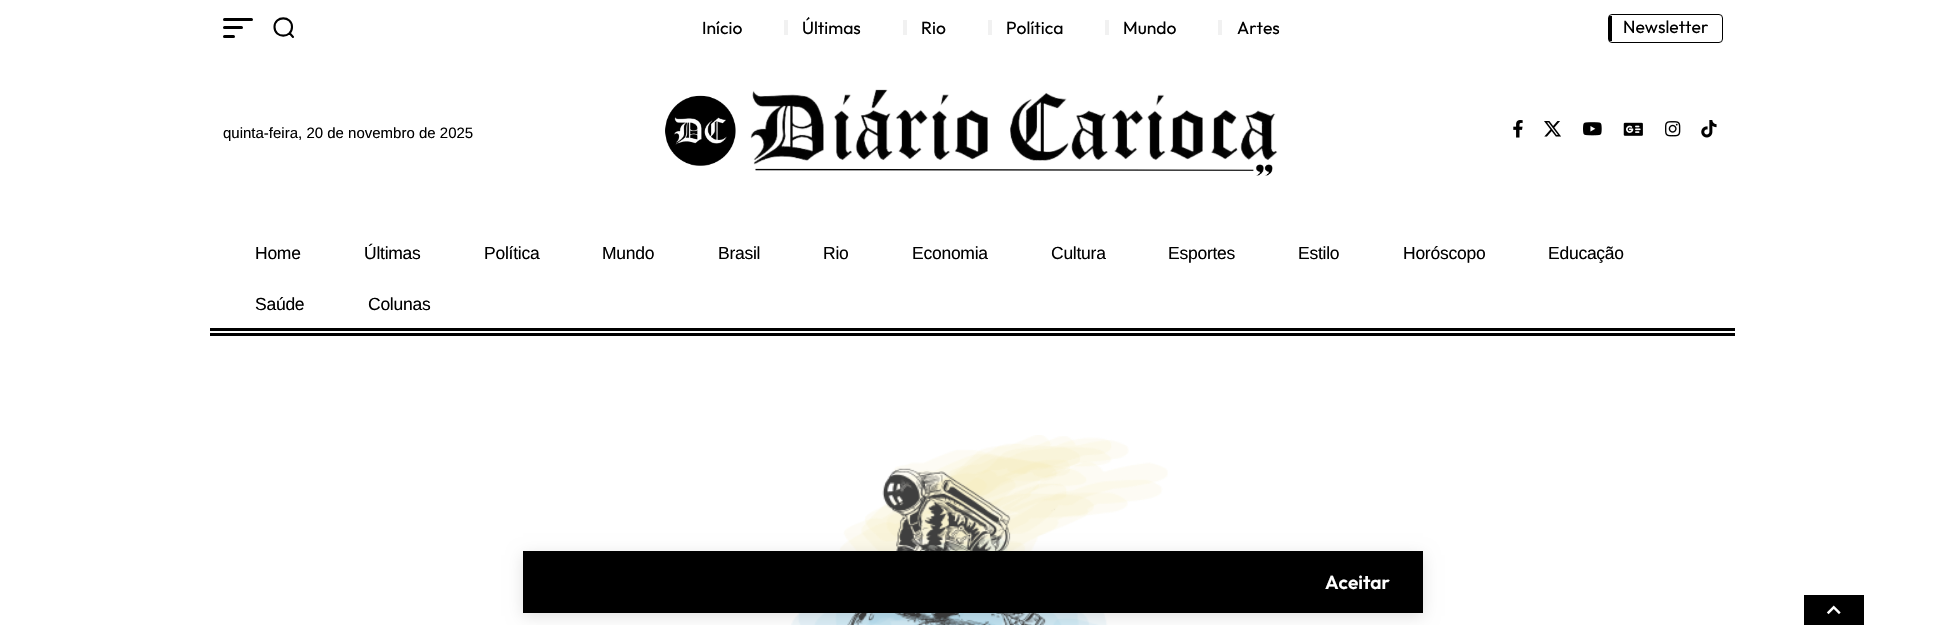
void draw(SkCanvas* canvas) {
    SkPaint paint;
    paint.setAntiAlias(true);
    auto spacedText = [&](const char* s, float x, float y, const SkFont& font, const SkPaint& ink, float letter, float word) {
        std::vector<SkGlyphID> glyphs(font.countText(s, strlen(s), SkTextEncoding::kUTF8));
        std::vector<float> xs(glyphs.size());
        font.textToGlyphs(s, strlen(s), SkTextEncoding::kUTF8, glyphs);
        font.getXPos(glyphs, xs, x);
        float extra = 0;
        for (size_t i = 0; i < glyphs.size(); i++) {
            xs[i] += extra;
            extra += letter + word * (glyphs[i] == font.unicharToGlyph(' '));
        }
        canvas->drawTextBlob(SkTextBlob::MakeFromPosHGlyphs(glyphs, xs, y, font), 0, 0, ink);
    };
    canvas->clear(0xFFFFFFFF);
    paint.setColor(0xFF000000);
    canvas->drawRoundRect(SkRect::MakeXYWH(223, 18, 30, 3), 1.5f, 1.5f, paint);
    canvas->drawRoundRect(SkRect::MakeXYWH(223, 26, 20, 3), 1.5f, 1.5f, paint);
    canvas->drawRoundRect(SkRect::MakeXYWH(223, 35, 12, 3), 1.5f, 1.5f, paint);
    paint.setStyle(SkPaint::kStroke_Style);
    paint.setStrokeWidth(2.1f);
    paint.setStrokeCap(SkPaint::kRound_Cap);
    paint.setStrokeJoin(SkPaint::kRound_Join);
    canvas->drawPath(SkPathBuilder().moveTo(293, 37).lineTo(289.5f, 33).moveTo(292, 27).cubicTo(292, 38.5f, 274.5f, 38.5f, 274.5f, 27).cubicTo(274.5f, 15.5f, 292, 15.5f, 292, 27).close().detach(), paint);
    SkFont font1(fontMgr->matchFamilyStyle("Outfit", SkFontStyle::Normal()), 17.5f);
    font1.setSubpixel(true);
    paint.setStyle(SkPaint::kFill_Style);
    canvas->drawString("Início", 702, 34, font1, paint);
    paint.setColor(0xFFF1F1F1);
    canvas->drawRect(SkRect::MakeXYWH(784, 20, 4, 15), paint);
    paint.setColor(0xFF000000);
    canvas->drawString("Últimas", 802, 34, font1, paint);
    paint.setColor(0xFFF1F1F1);
    canvas->drawRect(SkRect::MakeXYWH(903, 20, 4, 15), paint);
    paint.setColor(0xFF000000);
    canvas->drawString("Rio", 921, 34, font1, paint);
    paint.setColor(0xFFF1F1F1);
    canvas->drawRect(SkRect::MakeXYWH(988, 20, 4, 15), paint);
    paint.setColor(0xFF000000);
    canvas->drawString("Política", 1006, 34, font1, paint);
    paint.setColor(0xFFF1F1F1);
    canvas->drawRect(SkRect::MakeXYWH(1105, 20, 4, 15), paint);
    paint.setColor(0xFF000000);
    canvas->drawString("Mundo", 1123, 34, font1, paint);
    paint.setColor(0xFFF1F1F1);
    canvas->drawRect(SkRect::MakeXYWH(1218, 20, 4, 15), paint);
    paint.setColor(0xFF000000);
    canvas->drawString("Artes", 1237, 34, font1, paint);
    paint.setStyle(SkPaint::kStroke_Style);
    paint.setStrokeWidth(1);
    paint.setStrokeCap(SkPaint::kButt_Cap);
    paint.setStrokeJoin(SkPaint::kMiter_Join);
    canvas->drawRoundRect(SkRect::MakeXYWH(1608.5f, 14.5f, 114, 28), 3.5f, 3.5f, paint);
    paint.setStyle(SkPaint::kFill_Style);
    canvas->drawRect(SkRect::MakeXYWH(1609, 16, 3, 25), paint);
    canvas->drawString("Newsletter", 1623, 33, font1, paint);
    SkFont font2(fontMgr->matchFamilyStyle("Liberation Sans", SkFontStyle::Normal()), 15);
    font2.setSubpixel(true);
    canvas->drawString("quinta-feira, 20 de novembro de 2025", 223, 138, font2, paint);
    canvas->drawImageRect(SkImages::DeferredFromEncodedData(SkData::MakeFromFileName("img1.png")), SkRect::MakeXYWH(665, 89, 613, 87), SkSamplingOptions());
    canvas->drawImageRect(SkImages::DeferredFromEncodedData(SkData::MakeFromFileName("img2.png")), SkRect::MakeXYWH(1513, 120, 10, 18), SkSamplingOptions());
    canvas->drawImageRect(SkImages::DeferredFromEncodedData(SkData::MakeFromFileName("img3.png")), SkRect::MakeXYWH(1544, 121, 17, 16), SkSamplingOptions());
    canvas->drawImageRect(SkImages::DeferredFromEncodedData(SkData::MakeFromFileName("img4.png")), SkRect::MakeXYWH(1583, 122, 19, 14), SkSamplingOptions());
    canvas->drawImageRect(SkImages::DeferredFromEncodedData(SkData::MakeFromFileName("img5.png")), SkRect::MakeXYWH(1623, 122, 20, 14), SkSamplingOptions());
    canvas->drawImageRect(SkImages::DeferredFromEncodedData(SkData::MakeFromFileName("img6.png")), SkRect::MakeXYWH(1665, 121, 16, 16), SkSamplingOptions());
    canvas->drawImageRect(SkImages::DeferredFromEncodedData(SkData::MakeFromFileName("img7.png")), SkRect::MakeXYWH(1701, 120, 16, 18), SkSamplingOptions());
    canvas->drawRect(SkRect::MakeXYWH(210, 328, 1525, 3), paint);
    SkFont font3(fontMgr->matchFamilyStyle("Liberation Sans", SkFontStyle::Normal()), 17.5f);
    font3.setSubpixel(true);
    spacedText("Home", 255, 259, font3, paint, -0.25f, 0);
    spacedText("Últimas", 364, 259, font3, paint, -0.25f, 0);
    spacedText("Política", 484, 259, font3, paint, -0.25f, 0);
    spacedText("Mundo", 602, 259, font3, paint, -0.25f, 0);
    spacedText("Brasil", 718, 259, font3, paint, -0.25f, 0);
    spacedText("Rio", 823, 259, font3, paint, -0.25f, 0);
    spacedText("Economia", 912, 259, font3, paint, -0.25f, 0);
    spacedText("Cultura", 1051, 259, font3, paint, -0.25f, 0);
    spacedText("Esportes", 1168, 259, font3, paint, -0.25f, 0);
    spacedText("Estilo", 1298, 259, font3, paint, -0.25f, 0);
    spacedText("Horóscopo", 1403, 259, font3, paint, -0.25f, 0);
    spacedText("Educação", 1548, 259, font3, paint, -0.25f, 0);
    spacedText("Saúde", 255, 310, font3, paint, -0.25f, 0);
    spacedText("Colunas", 368, 310, font3, paint, -0.25f, 0);
    canvas->drawRect(SkRect::MakeXYWH(210, 333, 1525, 3), paint);
    canvas->drawImageRect(SkImages::DeferredFromEncodedData(SkData::MakeFromFileName("img8.png")), SkRect::MakeXYWH(791, 435, 377, 190), SkSamplingOptions());
    paint.setColor(0x1F000000);
    paint.setMaskFilter(SkMaskFilter::MakeBlur(kNormal_SkBlurStyle, 7.5f));
    canvas->drawRect(SkRect::MakeXYWH(523, 555, 900, 61), paint);
    paint.setMaskFilter(nullptr);
    paint.setColor(0xFF000000);
    canvas->drawRect(SkRect::MakeXYWH(523, 551, 900, 62), paint);
    SkFont font4(fontMgr->matchFamilyStyle("Outfit", SkFontStyle(600, SkFontStyle::kNormal_Width, SkFontStyle::kUpright_Slant)), 19);
    font4.setSubpixel(true);
    paint.setColor(0xFFFFFFFF);
    canvas->drawString("Aceitar", 1325, 589, font4, paint);
    paint.setColor(0xFF000000);
    canvas->drawRect(SkRect::MakeXYWH(1804, 595, 60, 30), paint);
    canvas->drawImageRect(SkImages::DeferredFromEncodedData(SkData::MakeFromFileName("img9.png")), SkRect::MakeXYWH(1826, 605, 15, 10), SkSamplingOptions());
}
